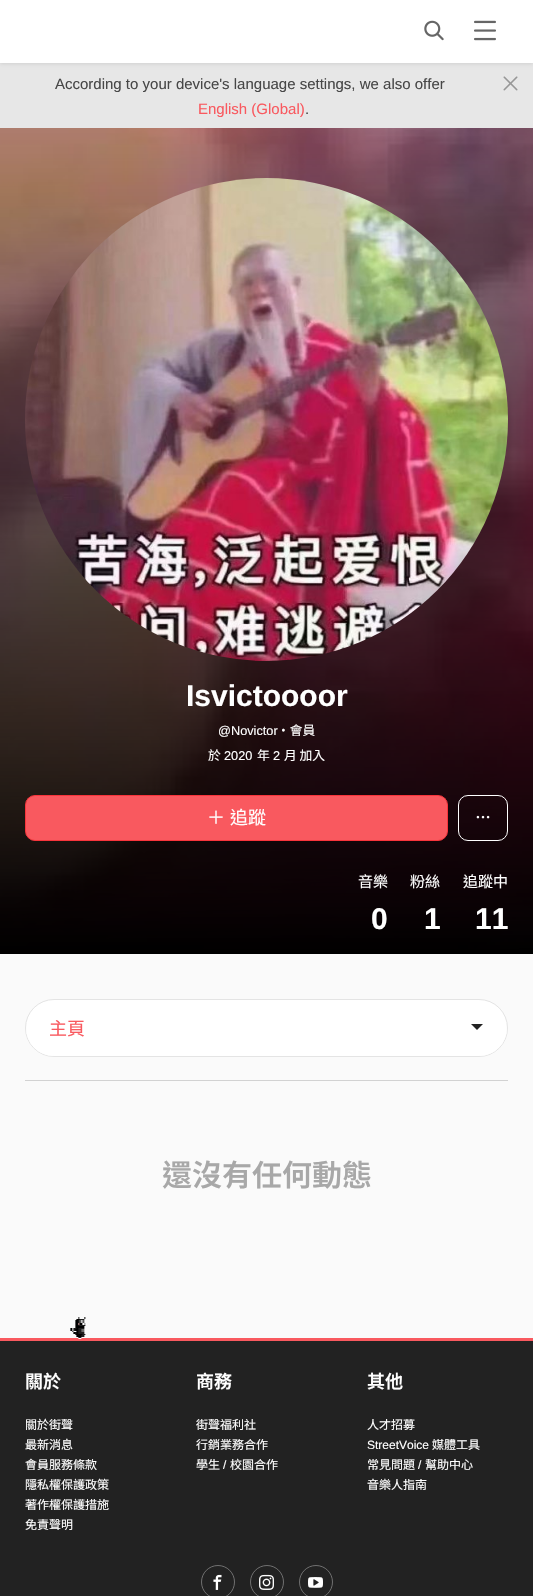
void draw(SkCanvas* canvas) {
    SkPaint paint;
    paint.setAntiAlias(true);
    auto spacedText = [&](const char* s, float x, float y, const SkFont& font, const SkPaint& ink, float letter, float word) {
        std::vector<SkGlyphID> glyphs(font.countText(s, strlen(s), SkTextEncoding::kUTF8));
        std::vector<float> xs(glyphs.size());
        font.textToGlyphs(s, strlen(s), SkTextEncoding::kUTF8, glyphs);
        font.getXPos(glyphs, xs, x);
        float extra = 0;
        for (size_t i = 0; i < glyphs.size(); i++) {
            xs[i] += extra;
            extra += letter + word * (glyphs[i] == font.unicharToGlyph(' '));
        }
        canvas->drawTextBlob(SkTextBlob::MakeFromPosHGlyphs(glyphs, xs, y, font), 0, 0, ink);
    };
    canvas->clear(0xFFFAFAFA);
    paint.setColor(0xFFE7E7E7);
    canvas->drawRect(SkRect::MakeXYWH(0, 63, 533, 65), paint);
    SkFont font1(fontMgr->matchFamilyStyle("Liberation Sans", SkFontStyle::Normal()), 15);
    font1.setSubpixel(true);
    paint.setColor(0xFF474747);
    canvas->drawString("According to your device's language settings, we also offer", 55, 89, font1, paint);
    paint.setColor(0xFFF9595F);
    canvas->drawString("English (Global)", 198, 114, font1, paint);
    paint.setColor(0xFF474747);
    canvas->drawString(".", 305, 114, font1, paint);
    canvas->drawImageRect(SkImages::DeferredFromEncodedData(SkData::MakeFromFileName("img1.png")), SkRect::MakeXYWH(503, 76, 15, 15), SkSamplingOptions());
    paint.setColor(0x1A000000);
    paint.setMaskFilter(SkMaskFilter::MakeBlur(kNormal_SkBlurStyle, 2));
    canvas->drawRect(SkRect::MakeXYWH(0, 1, 533, 63), paint);
    paint.setMaskFilter(nullptr);
    paint.setColor(0xFFFFFFFF);
    canvas->drawRect(SkRect::MakeXYWH(0, 0, 533, 63), paint);
    canvas->drawImageRect(SkImages::DeferredFromEncodedData(SkData::MakeFromFileName("img2.png")), SkRect::MakeXYWH(424, 20, 20, 21), SkSamplingOptions());
    canvas->drawImageRect(SkImages::DeferredFromEncodedData(SkData::MakeFromFileName("img3.png")), SkRect::MakeXYWH(474, 20, 22, 21), SkSamplingOptions());
    canvas->drawImageRect(SkImages::DeferredFromEncodedData(SkData::MakeFromFileName("img4.png")), SkRect::MakeXYWH(0, 128, 533, 826), SkSamplingOptions());
    canvas->drawImageRect(SkImages::DeferredFromEncodedData(SkData::MakeFromFileName("img5.png")), SkRect::MakeXYWH(25, 178, 483, 483), SkSamplingOptions());
    SkFont font2(fontMgr->matchFamilyStyle("Liberation Sans", SkFontStyle::Bold()), 30);
    font2.setSubpixel(true);
    canvas->drawString("Isvictoooor", 186, 706, font2, paint);
    SkFont font3(fontMgr->matchFamilyStyle("Liberation Sans", SkFontStyle::Normal()), 12.75f);
    font3.setSubpixel(true);
    canvas->drawString("@Novictor", 218, 735, font3, paint);
    SkFont font4(fontMgr->matchFamilyStyle("Noto Sans TC", SkFontStyle::Normal()), 12.75f);
    font4.setSubpixel(true);
    canvas->drawString("・會員", 277, 735, font4, paint);
    canvas->drawString("於", 208, 760, font4, paint);
    canvas->drawString("2020", 224, 760, font3, paint);
    canvas->drawString("年", 257, 760, font4, paint);
    canvas->drawString("2", 273, 760, font3, paint);
    canvas->drawString("月 加入", 284, 760, font4, paint);
    paint.setColor(0xFFF9595F);
    canvas->drawRoundRect(SkRect::MakeXYWH(25.5f, 795.5f, 422, 45), 9.5f, 9.5f, paint);
    paint.setStyle(SkPaint::kStroke_Style);
    paint.setStrokeWidth(1);
    paint.setColor(0xFFF8343B);
    canvas->drawRoundRect(SkRect::MakeXYWH(25.5f, 795.5f, 422, 45), 9.5f, 9.5f, paint);
    SkFont font5(fontMgr->matchFamilyStyle("Noto Sans TC", SkFontStyle::Normal()), 18);
    font5.setSubpixel(true);
    paint.setStyle(SkPaint::kFill_Style);
    paint.setColor(0xFFFFFFFF);
    spacedText("＋ 追蹤", 207, 824, font5, paint, 0, 1);
    paint.setStyle(SkPaint::kStroke_Style);
    canvas->drawRoundRect(SkRect::MakeXYWH(458.5f, 795.5f, 49, 45), 9.5f, 9.5f, paint);
    canvas->drawImageRect(SkImages::DeferredFromEncodedData(SkData::MakeFromFileName("img6.png")), SkRect::MakeXYWH(476, 815, 14, 4), SkSamplingOptions());
    SkFont font6(fontMgr->matchFamilyStyle("Noto Sans TC", SkFontStyle::Normal()), 15);
    font6.setSubpixel(true);
    paint.setStyle(SkPaint::kFill_Style);
    canvas->drawString("音樂", 358, 887, font6, paint);
    canvas->drawString("0", 371, 929, font2, paint);
    canvas->drawString("粉絲", 410, 887, font6, paint);
    canvas->drawString("1", 424, 929, font2, paint);
    canvas->drawString("追蹤中", 463, 887, font6, paint);
    canvas->drawString("11", 475, 929, font2, paint);
    canvas->drawRoundRect(SkRect::MakeXYWH(25.5f, 999.5f, 482, 57), 28.5f, 28.5f, paint);
    paint.setStyle(SkPaint::kStroke_Style);
    paint.setColor(0xFFE4E4E4);
    canvas->drawRoundRect(SkRect::MakeXYWH(25.5f, 999.5f, 482, 57), 28.5f, 28.5f, paint);
    canvas->save();
    canvas->clipPath(SkPathBuilder().moveTo(54, 1000).lineTo(479, 1000).cubicTo(494.5f, 1000, 507, 1012.5f, 507, 1028).cubicTo(507, 1043.5f, 494.5f, 1056, 479, 1056).lineTo(54, 1056).cubicTo(38.5f, 1056, 26, 1043.5f, 26, 1028).cubicTo(26, 1012.5f, 38.5f, 1000, 54, 1000).close().detach(), true);
    paint.setStyle(SkPaint::kFill_Style);
    paint.setColor(0xFFFFFFFF);
    canvas->drawRoundRect(SkRect::MakeXYWH(26, 1006, 481, 56), 28, 28, paint);
    canvas->restore();
    paint.setColor(0xFFF9595F);
    canvas->drawString("主頁", 49, 1035, font5, paint);
    paint.setColor(0xFF222222);
    canvas->drawPath(SkPathBuilder().moveTo(471, 1024).lineTo(483, 1024).lineTo(477, 1030).close().detach(), paint);
    paint.setColor(0xFFD2D2D2);
    canvas->drawRect(SkRect::MakeXYWH(25, 1080, 483, 1), paint);
    SkFont font7(fontMgr->matchFamilyStyle("Noto Sans TC", SkFontStyle(600, SkFontStyle::kNormal_Width, SkFontStyle::kUpright_Slant)), 30);
    font7.setSubpixel(true);
    paint.setColor(0xFFA8A8A8);
    canvas->drawString("還沒有任何動態", 162, 1186, font7, paint);
    paint.setColor(0xFF222222);
    canvas->drawRect(SkRect::MakeXYWH(0, 1341, 533, 255), paint);
    paint.setColor(0xFFF9595F);
    canvas->drawRect(SkRect::MakeXYWH(0, 1338, 533, 3), paint);
    canvas->drawImageRect(SkImages::DeferredFromEncodedData(SkData::MakeFromFileName("img7.png")), SkRect::MakeXYWH(70, 1317, 17, 22), SkSamplingOptions());
    SkFont font8(fontMgr->matchFamilyStyle("Noto Sans TC", SkFontStyle(600, SkFontStyle::kNormal_Width, SkFontStyle::kUpright_Slant)), 18);
    font8.setSubpixel(true);
    paint.setColor(0xFFFFFFFF);
    canvas->drawString("關於", 25, 1388, font8, paint);
    SkFont font9(fontMgr->matchFamilyStyle("Noto Sans TC", SkFontStyle::Normal()), 12);
    font9.setSubpixel(true);
    canvas->drawString("關於街聲", 25, 1429, font9, paint);
    canvas->drawString("最新消息", 25, 1449, font9, paint);
    canvas->drawString("會員服務條款", 25, 1469, font9, paint);
    canvas->drawString("隱私權保護政策", 25, 1489, font9, paint);
    canvas->drawString("著作權保護措施", 25, 1509, font9, paint);
    canvas->drawString("免責聲明", 25, 1529, font9, paint);
    canvas->drawString("商務", 196, 1388, font8, paint);
    canvas->drawString("街聲福利社", 196, 1429, font9, paint);
    canvas->drawString("行銷業務合作", 196, 1449, font9, paint);
    canvas->drawString("學生", 196, 1469, font9, paint);
    SkFont font10(fontMgr->matchFamilyStyle("Liberation Sans", SkFontStyle::Normal()), 12);
    font10.setSubpixel(true);
    canvas->drawString("/", 223, 1469, font10, paint);
    canvas->drawString("校園合作", 230, 1469, font9, paint);
    canvas->drawString("其他", 367, 1388, font8, paint);
    canvas->drawString("人才招募", 367, 1429, font9, paint);
    canvas->drawString("StreetVoice", 367, 1449, font10, paint);
    canvas->drawString("媒體工具", 432, 1449, font9, paint);
    canvas->drawString("常見問題", 367, 1469, font9, paint);
    canvas->drawString("/", 418, 1469, font10, paint);
    canvas->drawString("幫助中心", 425, 1469, font9, paint);
    canvas->drawString("音樂人指南", 367, 1489, font9, paint);
    paint.setStyle(SkPaint::kStroke_Style);
    paint.setColor(0xFF6F6F6F);
    canvas->drawCircle(218, 1582, 16.5f, paint);
    canvas->drawImageRect(SkImages::DeferredFromEncodedData(SkData::MakeFromFileName("img8.png")), SkRect::MakeXYWH(213, 1574, 9, 16), SkSamplingOptions());
    canvas->drawCircle(267, 1582, 16.5f, paint);
    canvas->drawImageRect(SkImages::DeferredFromEncodedData(SkData::MakeFromFileName("img9.png")), SkRect::MakeXYWH(259, 1574, 15, 16), SkSamplingOptions());
    canvas->drawCircle(316, 1582, 16.5f, paint);
    canvas->drawImageRect(SkImages::DeferredFromEncodedData(SkData::MakeFromFileName("img10.png")), SkRect::MakeXYWH(308, 1577, 15, 11), SkSamplingOptions());
}
